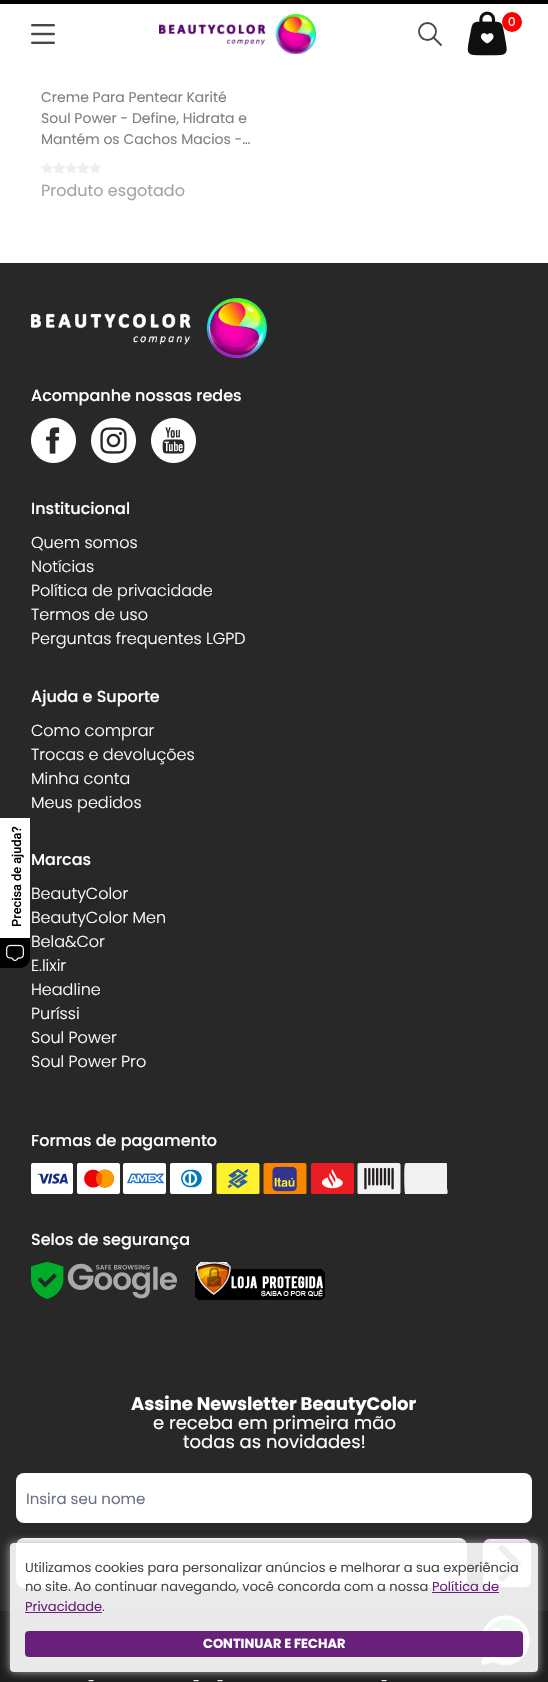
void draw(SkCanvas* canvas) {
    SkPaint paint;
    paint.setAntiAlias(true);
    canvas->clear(0xFFFFFFFF);
    paint.setColor(0xFF000000);
    canvas->drawRect(SkRect::MakeXYWH(0, 0, 548, 4), paint);
    canvas->drawImageRect(SkImages::DeferredFromEncodedData(SkData::MakeFromFileName("img1.png")), SkRect::MakeXYWH(159, 14, 157, 40), SkSamplingOptions());
    paint.setStyle(SkPaint::kStroke_Style);
    paint.setStrokeWidth(1.8f);
    paint.setColor(0xFF484848);
    canvas->drawCircle(427.5f, 31.5f, 8.5f, paint);
    paint.setStrokeCap(SkPaint::kRound_Cap);
    paint.setStrokeJoin(SkPaint::kRound_Join);
    canvas->drawPath(SkPathBuilder().moveTo(441, 45).lineTo(433.5f, 37.5f).detach(), paint);
    canvas->drawImageRect(SkImages::DeferredFromEncodedData(SkData::MakeFromFileName("img2.png")), SkRect::MakeXYWH(467, 11, 40, 45), SkSamplingOptions());
    paint.setStyle(SkPaint::kFill_Style);
    paint.setColor(0xFFFF0000);
    canvas->drawCircle(512, 22, 10, paint);
    SkFont font1(fontMgr->matchFamilyStyle("Poppins", SkFontStyle::Normal()), 12);
    font1.setSubpixel(true);
    paint.setColor(0xFFFFFFFF);
    canvas->drawString("0", 508, 26, font1, paint);
    canvas->drawImageRect(SkImages::DeferredFromEncodedData(SkData::MakeFromFileName("img3.png")), SkRect::MakeXYWH(31, 24, 24, 20), SkSamplingOptions());
    SkFont font2(fontMgr->matchFamilyStyle("Poppins", SkFontStyle::Normal()), 14);
    font2.setSubpixel(true);
    paint.setColor(0xFF808080);
    canvas->drawString("Creme Para Pentear Karité", 41, 102, font2, paint);
    canvas->drawString("Soul Power - Define, Hidrata e", 41, 123, font2, paint);
    canvas->drawString("Mantém os Cachos Macios -…", 41, 144, font2, paint);
    canvas->drawImageRect(SkImages::DeferredFromEncodedData(SkData::MakeFromFileName("img4.png")), SkRect::MakeXYWH(41, 162, 12, 12), SkSamplingOptions());
    canvas->drawImageRect(SkImages::DeferredFromEncodedData(SkData::MakeFromFileName("img4.png")), SkRect::MakeXYWH(53, 162, 12, 12), SkSamplingOptions());
    canvas->drawImageRect(SkImages::DeferredFromEncodedData(SkData::MakeFromFileName("img4.png")), SkRect::MakeXYWH(65, 162, 12, 12), SkSamplingOptions());
    canvas->drawImageRect(SkImages::DeferredFromEncodedData(SkData::MakeFromFileName("img4.png")), SkRect::MakeXYWH(77, 162, 12, 12), SkSamplingOptions());
    canvas->drawImageRect(SkImages::DeferredFromEncodedData(SkData::MakeFromFileName("img4.png")), SkRect::MakeXYWH(89, 162, 12, 12), SkSamplingOptions());
    SkFont font3(fontMgr->matchFamilyStyle("Poppins", SkFontStyle::Normal()), 16);
    font3.setSubpixel(true);
    paint.setColor(0xFFA4A4A4);
    canvas->drawString("Produto esgotado", 41, 196, font3, paint);
    paint.setColor(0xFF282828);
    canvas->drawRect(SkRect::MakeXYWH(0, 263, 548, 1348), paint);
    paint.setColor(0x14000000);
    paint.setMaskFilter(SkMaskFilter::MakeBlur(kNormal_SkBlurStyle, 4.5f));
    canvas->drawRect(SkRect::MakeXYWH(-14, 882, 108, 30), paint);
    paint.setMaskFilter(nullptr);
    paint.setColor(0xFFFFFFFF);
    canvas->drawRect(SkRect::MakeXYWH(0, 818, 30, 120), paint);
    SkFont font4(fontMgr->matchFamilyStyle("Roboto", SkFontStyle(500, SkFontStyle::kNormal_Width, SkFontStyle::kUpright_Slant)), 12.75f);
    font4.setSubpixel(true);
    paint.setColor(0xFF000000);
    canvas->save();
    canvas->rotate(-90, 21, 927);
    canvas->drawString("Precisa de ajuda?", 21, 927, font4, paint);
    canvas->restore();
    canvas->drawPath(SkPathBuilder().moveTo(0, 938).lineTo(30, 938).lineTo(30, 958).cubicTo(30, 963.5f, 25.5f, 968, 20, 968).lineTo(0, 968).close().detach(), paint);
    canvas->drawImageRect(SkImages::DeferredFromEncodedData(SkData::MakeFromFileName("img5.png")), SkRect::MakeXYWH(6, 944, 18, 18), SkSamplingOptions());
    canvas->drawImageRect(SkImages::DeferredFromEncodedData(SkData::MakeFromFileName("img6.png")), SkRect::MakeXYWH(31, 298, 236, 60), SkSamplingOptions());
    SkFont font5(fontMgr->matchFamilyStyle("Poppins", SkFontStyle(500, SkFontStyle::kNormal_Width, SkFontStyle::kUpright_Slant)), 16);
    font5.setSubpixel(true);
    paint.setColor(0xFFFFFFFF);
    canvas->drawString("Acompanhe nossas redes", 31, 401, font5, paint);
    canvas->drawImageRect(SkImages::DeferredFromEncodedData(SkData::MakeFromFileName("img7.png")), SkRect::MakeXYWH(31, 418, 45, 45), SkSamplingOptions());
    canvas->drawImageRect(SkImages::DeferredFromEncodedData(SkData::MakeFromFileName("img8.png")), SkRect::MakeXYWH(91, 418, 45, 45), SkSamplingOptions());
    canvas->drawImageRect(SkImages::DeferredFromEncodedData(SkData::MakeFromFileName("img9.png")), SkRect::MakeXYWH(151, 418, 45, 45), SkSamplingOptions());
    canvas->drawString("Institucional", 31, 514, font5, paint);
    SkFont font6(fontMgr->matchFamilyStyle("Poppins", SkFontStyle(300, SkFontStyle::kNormal_Width, SkFontStyle::kUpright_Slant)), 16);
    font6.setSubpixel(true);
    canvas->drawString("Quem somos", 31, 548, font6, paint);
    canvas->drawString("Notícias", 31, 572, font6, paint);
    canvas->drawString("Política de privacidade", 31, 596, font6, paint);
    canvas->drawString("Termos de uso", 31, 620, font6, paint);
    canvas->drawString("Perguntas frequentes LGPD", 31, 644, font6, paint);
    canvas->drawString("Ajuda e Suporte", 31, 702, font5, paint);
    canvas->drawString("Como comprar", 31, 736, font6, paint);
    canvas->drawString("Trocas e devoluções", 31, 760, font6, paint);
    canvas->drawString("Minha conta", 31, 784, font6, paint);
    canvas->drawString("Meus pedidos", 31, 808, font6, paint);
    canvas->drawString("Marcas", 31, 865, font5, paint);
    canvas->drawString("BeautyColor", 31, 899, font6, paint);
    canvas->drawString("BeautyColor Men", 31, 923, font6, paint);
    canvas->drawString("Bela&Cor", 31, 947, font6, paint);
    canvas->drawString("E.lixir", 31, 971, font6, paint);
    canvas->drawString("Headline", 31, 995, font6, paint);
    canvas->drawString("Puríssi", 31, 1019, font6, paint);
    canvas->drawString("Soul Power", 31, 1043, font6, paint);
    canvas->drawString("Soul Power Pro", 31, 1067, font6, paint);
    canvas->drawString("Formas de pagamento", 31, 1146, font5, paint);
    canvas->drawImageRect(SkImages::DeferredFromEncodedData(SkData::MakeFromFileName("img10.png")), SkRect::MakeXYWH(31, 1163, 181, 31), SkSamplingOptions());
    canvas->drawImageRect(SkImages::DeferredFromEncodedData(SkData::MakeFromFileName("img11.png")), SkRect::MakeXYWH(216, 1163, 44, 31), SkSamplingOptions());
    canvas->drawImageRect(SkImages::DeferredFromEncodedData(SkData::MakeFromFileName("img12.png")), SkRect::MakeXYWH(263, 1163, 44, 31), SkSamplingOptions());
    canvas->drawImageRect(SkImages::DeferredFromEncodedData(SkData::MakeFromFileName("img13.png")), SkRect::MakeXYWH(311, 1163, 43, 31), SkSamplingOptions());
    canvas->drawImageRect(SkImages::DeferredFromEncodedData(SkData::MakeFromFileName("img14.png")), SkRect::MakeXYWH(357, 1163, 44, 31), SkSamplingOptions());
    canvas->save();
    canvas->clipRect(SkRect::MakeXYWH(404, 1163, 44, 31));
    paint.setColor(0xFFF2F2F2);
    canvas->drawPath(SkPathBuilder().moveTo(406, 1163).lineTo(439, 1163).cubicTo(448, 1163, 447, 1161, 447, 1170).lineTo(447, 1188).cubicTo(447, 1189, 449, 1194, 446, 1194).lineTo(405, 1194).lineTo(405, 1193).cubicTo(404, 1190, 404, 1164, 405, 1164).close().detach(), paint);
    canvas->restore();
    paint.setColor(0xFFFFFFFF);
    canvas->drawString("Selos de segurança", 31, 1245, font5, paint);
    canvas->drawImageRect(SkImages::DeferredFromEncodedData(SkData::MakeFromFileName("img15.png")), SkRect::MakeXYWH(31, 1262, 146, 37), SkSamplingOptions());
    canvas->drawImageRect(SkImages::DeferredFromEncodedData(SkData::MakeFromFileName("img16.png")), SkRect::MakeXYWH(195, 1262, 130, 38), SkSamplingOptions());
    SkFont font7(fontMgr->matchFamilyStyle("Poppins", SkFontStyle::Bold()), 18);
    font7.setSubpixel(true);
    canvas->drawString("Assine Newsletter BeautyColor", 131, 1410, font7, paint);
    SkFont font8(fontMgr->matchFamilyStyle("Poppins", SkFontStyle::Normal()), 18);
    font8.setSubpixel(true);
    canvas->drawString("e receba em primeira mão", 153, 1429, font8, paint);
    canvas->drawString("todas as novidades!", 183, 1448, font8, paint);
    canvas->drawRoundRect(SkRect::MakeXYWH(16, 1473, 516, 50), 8, 8, paint);
    SkFont font9(fontMgr->matchFamilyStyle("Poppins", SkFontStyle::Normal()), 15);
    font9.setSubpixel(true);
    paint.setColor(0xFF6B7280);
    canvas->drawString("Insira seu nome", 26, 1504, font9, paint);
    paint.setColor(0xFFFFFFFF);
    canvas->drawRoundRect(SkRect::MakeXYWH(16, 1538, 451, 50), 8, 8, paint);
    canvas->drawImageRect(SkImages::DeferredFromEncodedData(SkData::MakeFromFileName("img17.png")), SkRect::MakeXYWH(482, 1538, 50, 50), SkSamplingOptions());
    paint.setColor(0xFF1D1D1D);
    canvas->drawRect(SkRect::MakeXYWH(0, 1611, 548, 71), paint);
    paint.setColor(0xFFFFFFFF);
    canvas->drawString("-", 88, 1685, font1, paint);
    canvas->drawString("-", 193, 1685, font1, paint);
    canvas->drawString("-", 217, 1685, font1, paint);
    canvas->drawString("-", 381, 1685, font1, paint);
    canvas->drawImageRect(SkImages::DeferredFromEncodedData(SkData::MakeFromFileName("img18.png")), SkRect::MakeXYWH(481, 1615, 49, 51), SkSamplingOptions());
    canvas->save();
    canvas->clipPath(SkPathBuilder(SkPathFillType::kEvenOdd).moveTo(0, 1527).lineTo(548, 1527).lineTo(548, 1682).lineTo(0, 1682).close().moveTo(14, 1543).lineTo(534, 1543).cubicTo(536, 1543, 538, 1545, 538, 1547).lineTo(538, 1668).cubicTo(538, 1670, 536, 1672, 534, 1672).lineTo(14, 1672).cubicTo(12, 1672, 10, 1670, 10, 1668).lineTo(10, 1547).cubicTo(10, 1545, 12, 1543, 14, 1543).close().detach(), true);
    paint.setColor(0xFFAAAAAA);
    paint.setMaskFilter(SkMaskFilter::MakeBlur(kNormal_SkBlurStyle, 5));
    canvas->drawRoundRect(SkRect::MakeXYWH(10, 1543, 528, 129), 4, 4, paint);
    paint.setMaskFilter(nullptr);
    canvas->restore();
    paint.setColor(0xE6FFFFFF);
    canvas->drawRoundRect(SkRect::MakeXYWH(10, 1543, 528, 129), 4, 4, paint);
    SkFont font10(fontMgr->matchFamilyStyle("Poppins", SkFontStyle::Normal()), 13);
    font10.setSubpixel(true);
    paint.setColor(0xFF484848);
    canvas->drawString("Utilizamos cookies para personalizar anúncios e melhorar a sua experiência", 25, 1572, font10, paint);
    canvas->drawString("no site. Ao continuar navegando, você concorda com a nossa", 25, 1591, font10, paint);
    paint.setColor(0xFF69207A);
    canvas->drawString("Política de", 432, 1591, font10, paint);
    canvas->drawRect(SkRect::MakeXYWH(432, 1592, 67, 1), paint);
    canvas->drawString("Privacidade", 25, 1611, font10, paint);
    canvas->drawRect(SkRect::MakeXYWH(25, 1612, 77, 1), paint);
    paint.setColor(0xFF484848);
    canvas->drawString(".", 102, 1611, font10, paint);
    paint.setColor(0xFF69207A);
    canvas->drawRoundRect(SkRect::MakeXYWH(25, 1631, 498, 26), 4, 4, paint);
    SkFont font11(fontMgr->matchFamilyStyle("Poppins", SkFontStyle::Bold()), 13);
    font11.setSubpixel(true);
    paint.setColor(0xFFFFFFFF);
    canvas->drawString("CONTINUAR E FECHAR", 203, 1648, font11, paint);
}
